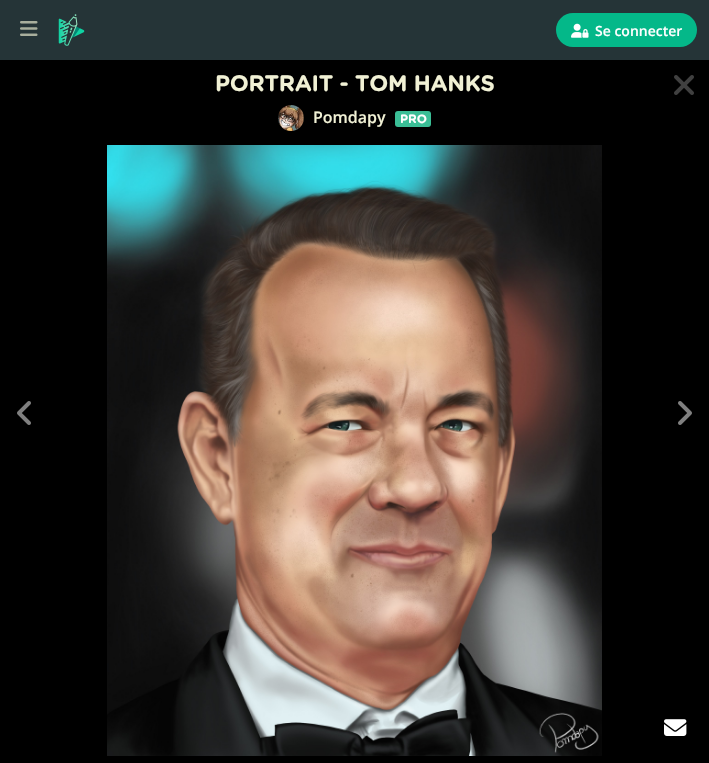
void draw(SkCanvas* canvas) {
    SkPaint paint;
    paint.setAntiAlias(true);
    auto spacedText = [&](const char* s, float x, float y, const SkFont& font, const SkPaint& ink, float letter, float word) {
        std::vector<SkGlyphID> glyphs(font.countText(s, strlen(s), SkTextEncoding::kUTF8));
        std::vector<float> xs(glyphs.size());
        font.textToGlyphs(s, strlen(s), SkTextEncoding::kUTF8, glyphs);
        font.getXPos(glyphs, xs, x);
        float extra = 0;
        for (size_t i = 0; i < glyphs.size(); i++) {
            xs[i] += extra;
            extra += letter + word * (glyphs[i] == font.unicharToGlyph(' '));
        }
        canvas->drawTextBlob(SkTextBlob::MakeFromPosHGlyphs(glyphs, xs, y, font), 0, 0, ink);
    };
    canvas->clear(0xFF000000);
    paint.setColor(0xFF253437);
    canvas->drawRect(SkRect::MakeXYWH(0, 0, 709, 60), paint);
    canvas->drawImageRect(SkImages::DeferredFromEncodedData(SkData::MakeFromFileName("img1.png")), SkRect::MakeXYWH(20, 21, 18, 15), SkSamplingOptions());
    canvas->drawImageRect(SkImages::DeferredFromEncodedData(SkData::MakeFromFileName("img2.png")), SkRect::MakeXYWH(58, 14, 27, 32), SkSamplingOptions());
    paint.setColor(0xFF04B889);
    canvas->drawRoundRect(SkRect::MakeXYWH(556, 13, 141, 34), 17, 17, paint);
    canvas->drawImageRect(SkImages::DeferredFromEncodedData(SkData::MakeFromFileName("img3.png")), SkRect::MakeXYWH(571, 23, 18, 15), SkSamplingOptions());
    SkFont font1(fontMgr->matchFamilyStyle("Open Sans", SkFontStyle(600, SkFontStyle::kNormal_Width, SkFontStyle::kUpright_Slant)), 14);
    font1.setSubpixel(true);
    paint.setColor(0xFFFFFFFF);
    canvas->drawString("Se connecter", 595, 36, font1, paint);
    canvas->drawImageRect(SkImages::DeferredFromEncodedData(SkData::MakeFromFileName("img4.png")), SkRect::MakeXYWH(674, 75, 20, 20), SkSamplingOptions());
    canvas->drawImageRect(SkImages::DeferredFromEncodedData(SkData::MakeFromFileName("img5.png")), SkRect::MakeXYWH(17, 401, 14, 24), SkSamplingOptions());
    canvas->drawImageRect(SkImages::DeferredFromEncodedData(SkData::MakeFromFileName("img6.png")), SkRect::MakeXYWH(678, 401, 14, 24), SkSamplingOptions());
    SkFont font2(fontMgr->matchFamilyStyle("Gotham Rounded", SkFontStyle::Bold()), 22.4f);
    font2.setSubpixel(true);
    paint.setColor(0xFFF1F1D5);
    spacedText("PORTRAIT - TOM HANKS", 215, 91, font2, paint, -0.25f, 0);
    canvas->drawImageRect(SkImages::DeferredFromEncodedData(SkData::MakeFromFileName("img7.png")), SkRect::MakeXYWH(278, 105, 26, 26), SkSamplingOptions());
    SkFont font3(fontMgr->matchFamilyStyle("Open Sans", SkFontStyle(600, SkFontStyle::kNormal_Width, SkFontStyle::kUpright_Slant)), 16);
    font3.setSubpixel(true);
    canvas->drawString("Pomdapy", 313, 123, font3, paint);
    paint.setColor(0xFF3ABE96);
    canvas->drawRoundRect(SkRect::MakeXYWH(395, 111, 36, 16), 3, 3, paint);
    SkFont font4(fontMgr->matchFamilyStyle("Gotham Rounded", SkFontStyle::Bold()), 12);
    font4.setSubpixel(true);
    paint.setColor(0xFFFFFFFF);
    canvas->drawString("PRO", 400, 123, font4, paint);
    canvas->drawImageRect(SkImages::DeferredFromEncodedData(SkData::MakeFromFileName("img8.png")), SkRect::MakeXYWH(107, 145, 495, 611), SkSamplingOptions());
    canvas->drawImageRect(SkImages::DeferredFromEncodedData(SkData::MakeFromFileName("img9.png")), SkRect::MakeXYWH(664, 719, 23, 17), SkSamplingOptions());
}
